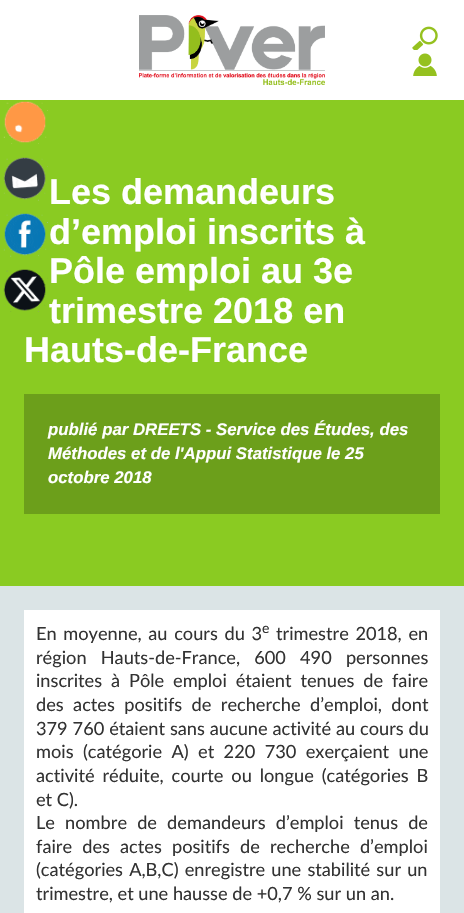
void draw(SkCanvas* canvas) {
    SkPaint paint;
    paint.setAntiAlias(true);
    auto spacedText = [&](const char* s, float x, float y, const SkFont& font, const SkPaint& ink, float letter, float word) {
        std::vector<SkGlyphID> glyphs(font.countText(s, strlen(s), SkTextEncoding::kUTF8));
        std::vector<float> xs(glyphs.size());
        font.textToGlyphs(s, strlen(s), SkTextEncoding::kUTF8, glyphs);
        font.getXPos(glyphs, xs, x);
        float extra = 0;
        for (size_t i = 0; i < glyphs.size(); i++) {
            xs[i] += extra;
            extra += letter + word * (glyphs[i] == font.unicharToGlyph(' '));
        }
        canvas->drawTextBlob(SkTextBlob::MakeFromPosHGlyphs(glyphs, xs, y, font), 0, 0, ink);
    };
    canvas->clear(0xFFFFFFFF);
    canvas->drawImageRect(SkImages::DeferredFromEncodedData(SkData::MakeFromFileName("img1.png")), SkRect::MakeXYWH(139, 15, 186, 70), SkSamplingOptions());
    canvas->drawImageRect(SkImages::DeferredFromEncodedData(SkData::MakeFromFileName("img2.png")), SkRect::MakeXYWH(412, 26, 26, 24), SkSamplingOptions());
    canvas->drawImageRect(SkImages::DeferredFromEncodedData(SkData::MakeFromFileName("img3.png")), SkRect::MakeXYWH(413, 53, 24, 23), SkSamplingOptions());
    paint.setColor(0xFF8ACB22);
    canvas->drawRect(SkRect::MakeXYWH(0, 100, 464, 486), paint);
    canvas->drawImageRect(SkImages::DeferredFromEncodedData(SkData::MakeFromFileName("img4.png")), SkRect::MakeXYWH(3, 101, 45, 43), SkSamplingOptions());
    canvas->drawImageRect(SkImages::DeferredFromEncodedData(SkData::MakeFromFileName("img5.png")), SkRect::MakeXYWH(3, 157, 45, 44), SkSamplingOptions());
    canvas->drawImageRect(SkImages::DeferredFromEncodedData(SkData::MakeFromFileName("img6.png")), SkRect::MakeXYWH(3, 213, 45, 44), SkSamplingOptions());
    canvas->drawImageRect(SkImages::DeferredFromEncodedData(SkData::MakeFromFileName("img7.png")), SkRect::MakeXYWH(3, 269, 45, 43), SkSamplingOptions());
    SkFont font1(fontMgr->matchFamilyStyle("Liberation Sans", SkFontStyle::Bold()), 36);
    font1.setSubpixel(true);
    paint.setColor(0xFFFFFFFF);
    canvas->drawString("Les demandeurs", 49, 204, font1, paint);
    canvas->drawString("d’emploi inscrits à", 49, 244, font1, paint);
    canvas->drawString("Pôle emploi au 3e", 49, 283, font1, paint);
    canvas->drawString("trimestre 2018 en", 49, 323, font1, paint);
    canvas->drawString("Hauts-de-France", 24, 362, font1, paint);
    paint.setColor(0xFF6C9F1B);
    canvas->drawRect(SkRect::MakeXYWH(24, 394, 416, 120), paint);
    SkFont font2(fontMgr->matchFamilyStyle("Liberation Sans", SkFontStyle::BoldItalic()), 16.8f);
    font2.setSubpixel(true);
    paint.setColor(0xFFFFFFFF);
    canvas->drawString("publié par DREETS - Service des Études, des", 48, 435, font2, paint);
    canvas->drawString("Méthodes et de l'Appui Statistique le 25", 48, 459, font2, paint);
    canvas->drawString("octobre 2018", 48, 483, font2, paint);
    paint.setColor(0xFFDBE4E6);
    canvas->drawRect(SkRect::MakeXYWH(0, 586, 464, 327), paint);
    paint.setColor(0xFFFFFFFF);
    canvas->drawRect(SkRect::MakeXYWH(24, 610, 416, 303), paint);
    SkFont font3(fontMgr->matchFamilyStyle("Lato", SkFontStyle::Normal()), 18.2f);
    font3.setSubpixel(true);
    paint.setColor(0xFF333333);
    spacedText("En moyenne, au cours du 3", 36, 640, font3, paint, 0, 2);
    SkFont font4(fontMgr->matchFamilyStyle("Lato", SkFontStyle::Normal()), 14);
    font4.setSubpixel(true);
    canvas->drawString("e", 262, 633, font4, paint);
    spacedText("trimestre 2018, en", 276, 640, font3, paint, 0, 2);
    spacedText("région Hauts-de-France, 600 490 personnes", 36, 664, font3, paint, 0, 9.5f);
    spacedText("inscrites à Pôle emploi étaient tenues de faire", 36, 687, font3, paint, 0, 4.25f);
    spacedText("des actes positifs de recherche d’emploi, dont", 36, 711, font3, paint, 0, 4.75f);
    spacedText("379 760 étaient sans aucune activité au cours du", 36, 735, font3, paint, 0, 0.25f);
    spacedText("mois (catégorie A) et 220 730 exerçaient une", 36, 758, font3, paint, 0, 4.75f);
    spacedText("activité réduite, courte ou longue (catégories B", 36, 782, font3, paint, 0, 3.25f);
    canvas->drawString("et C).", 36, 806, font3, paint);
    spacedText("Le nombre de demandeurs d’emploi tenus de", 36, 829, font3, paint, 0, 5.5f);
    spacedText("faire des actes positifs de recherche d’emploi", 36, 853, font3, paint, 0, 5.5f);
    spacedText("(catégories A,B,C) enregistre une stabilité sur un", 36, 876, font3, paint, 0, 1.5f);
    canvas->drawString("trimestre, et une hausse de +0,7 % sur un an.", 36, 900, font3, paint);
}
